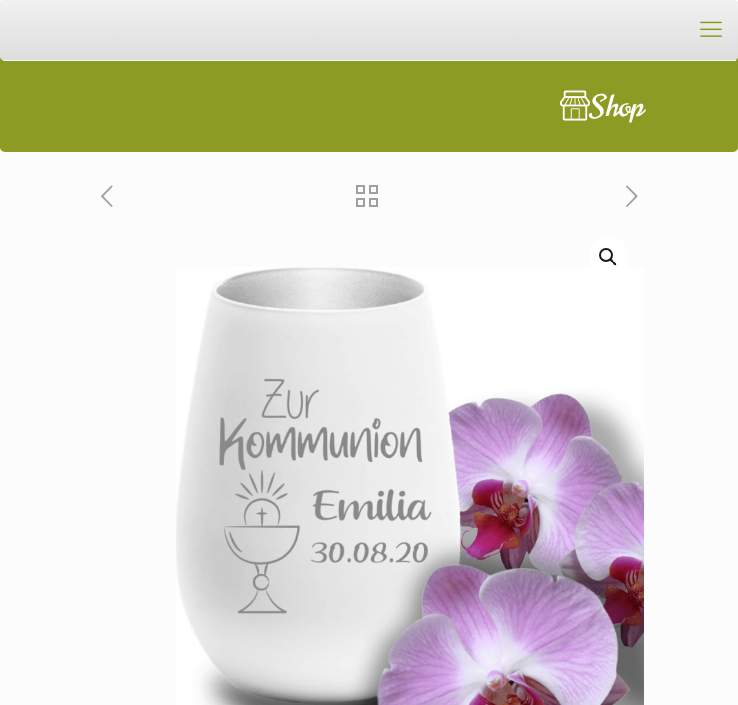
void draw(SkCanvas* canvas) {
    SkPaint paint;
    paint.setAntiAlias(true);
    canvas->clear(0xFFFCFCFC);
    paint.setColor(0xFF8C9A22);
    canvas->drawRoundRect(SkRect::MakeXYWH(0, 0, 738, 152), 5, 5, paint);
    paint.setColor(0xFFFFFFFF);
    canvas->drawPath(SkPathBuilder().moveTo(5, 0).lineTo(733, 0).cubicTo(736, 0, 738, 2, 738, 5).lineTo(738, 56).cubicTo(738, 58, 736, 60, 733, 60).lineTo(5, 60).cubicTo(2, 60, 0, 58, 0, 56).lineTo(0, 5).cubicTo(0, 2, 2, 0, 5, 0).close().detach(), paint);
    canvas->drawImageRect(SkImages::DeferredFromEncodedData(SkData::MakeFromFileName("img1.png")), SkRect::MakeXYWH(0, 0, 738, 60), SkSamplingOptions());
    paint.setColor(0xFFF2F2F2);
    canvas->drawRect(SkRect::MakeXYWH(3, 60, 733, 1), paint);
    canvas->drawImageRect(SkImages::DeferredFromEncodedData(SkData::MakeFromFileName("img2.png")), SkRect::MakeXYWH(700, 21, 22, 16), SkSamplingOptions());
    paint.setColor(0x668C9A22);
    canvas->drawRoundRect(SkRect::MakeXYWH(0, 61, 738, 91), 5, 5, paint);
    canvas->drawImageRect(SkImages::DeferredFromEncodedData(SkData::MakeFromFileName("img3.png")), SkRect::MakeXYWH(560, 90, 30, 31), SkSamplingOptions());
    SkFont font1(fontMgr->matchFamilyStyle("Norican", SkFontStyle::Normal()), 30);
    font1.setSubpixel(true);
    paint.setColor(0xFFFFFFFF);
    canvas->drawString("Shop", 590, 116, font1, paint);
    canvas->drawImageRect(SkImages::DeferredFromEncodedData(SkData::MakeFromFileName("img4.png")), SkRect::MakeXYWH(101, 185, 12, 22), SkSamplingOptions());
    canvas->drawImageRect(SkImages::DeferredFromEncodedData(SkData::MakeFromFileName("img5.png")), SkRect::MakeXYWH(356, 185, 22, 22), SkSamplingOptions());
    canvas->drawImageRect(SkImages::DeferredFromEncodedData(SkData::MakeFromFileName("img6.png")), SkRect::MakeXYWH(626, 185, 12, 22), SkSamplingOptions());
    canvas->drawImageRect(SkImages::DeferredFromEncodedData(SkData::MakeFromFileName("img7.png")), SkRect::MakeXYWH(176, 267, 468, 438), SkSamplingOptions());
    canvas->drawCircle(609, 257, 20, paint);
    paint.setStyle(SkPaint::kStroke_Style);
    paint.setStrokeWidth(2);
    paint.setColor(0xFF161922);
    canvas->drawCircle(606, 255, 6, paint);
    paint.setStyle(SkPaint::kFill_Style);
    canvas->drawPath(SkPathBuilder().moveTo(610, 259).cubicTo(611.5f, 258, 613, 260.5f, 613.5f, 261.5f).cubicTo(614.5f, 262, 617, 263.5f, 616, 265).cubicTo(614.5f, 266, 613, 263.5f, 612.5f, 262.5f).cubicTo(611.5f, 262, 609, 260.5f, 610, 259).close().detach(), paint);
}
